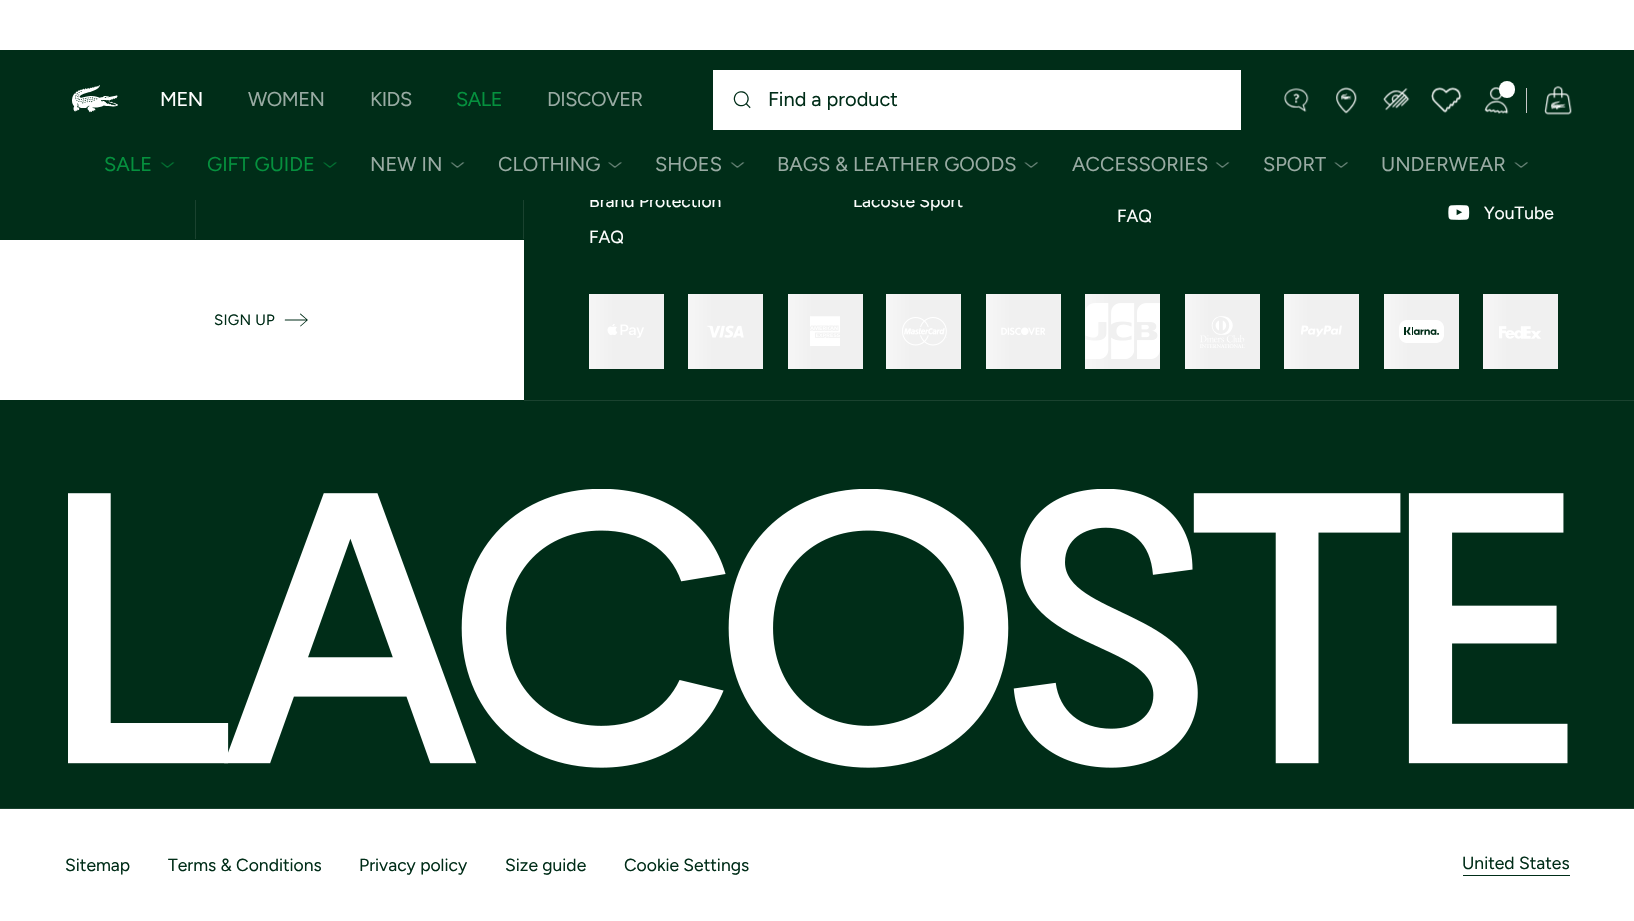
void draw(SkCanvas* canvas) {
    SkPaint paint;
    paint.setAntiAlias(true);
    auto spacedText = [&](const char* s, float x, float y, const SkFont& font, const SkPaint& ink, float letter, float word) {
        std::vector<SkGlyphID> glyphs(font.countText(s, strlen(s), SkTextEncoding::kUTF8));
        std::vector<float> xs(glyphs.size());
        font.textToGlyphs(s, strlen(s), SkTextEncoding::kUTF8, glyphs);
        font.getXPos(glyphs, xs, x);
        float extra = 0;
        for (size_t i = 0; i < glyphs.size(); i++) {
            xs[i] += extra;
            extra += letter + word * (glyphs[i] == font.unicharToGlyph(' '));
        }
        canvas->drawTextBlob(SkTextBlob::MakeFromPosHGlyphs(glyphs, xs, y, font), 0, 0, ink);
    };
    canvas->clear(0xFFFFFFFF);
    paint.setColor(0xFF002D18);
    canvas->drawRect(SkRect::MakeXYWH(0, 200, 1634, 608), paint);
    SkFont font1(fontMgr->matchFamilyStyle("Figtree", SkFontStyle::Normal()), 17.5f);
    font1.setSubpixel(true);
    paint.setColor(0xFFFFFFFF);
    canvas->drawString("Brand Protection", 589, 207, font1, paint);
    canvas->drawString("Lacoste Sport", 853, 207, font1, paint);
    paint.setColor(0xFF002D18);
    canvas->drawRect(SkRect::MakeXYWH(0, 50, 1634, 150), paint);
    canvas->drawImageRect(SkImages::DeferredFromEncodedData(SkData::MakeFromFileName("img1.png")), SkRect::MakeXYWH(72, 85, 46, 28), SkSamplingOptions());
    canvas->drawImageRect(SkImages::DeferredFromEncodedData(SkData::MakeFromFileName("img2.png")), SkRect::MakeXYWH(1284, 88, 25, 24), SkSamplingOptions());
    canvas->drawImageRect(SkImages::DeferredFromEncodedData(SkData::MakeFromFileName("img3.png")), SkRect::MakeXYWH(1336, 87, 21, 27), SkSamplingOptions());
    canvas->drawImageRect(SkImages::DeferredFromEncodedData(SkData::MakeFromFileName("img4.png")), SkRect::MakeXYWH(1383, 88, 27, 23), SkSamplingOptions());
    canvas->drawImageRect(SkImages::DeferredFromEncodedData(SkData::MakeFromFileName("img5.png")), SkRect::MakeXYWH(1431, 87, 31, 26), SkSamplingOptions());
    canvas->drawImageRect(SkImages::DeferredFromEncodedData(SkData::MakeFromFileName("img6.png")), SkRect::MakeXYWH(1484, 87, 25, 27), SkSamplingOptions());
    paint.setColor(0xFFFFFFFF);
    canvas->drawRoundRect(SkRect::MakeXYWH(1499, 81, 16, 17), 8, 8, paint);
    paint.setColor(0xFFC8C8C8);
    canvas->drawRect(SkRect::MakeXYWH(1526, 88, 1, 25), paint);
    canvas->drawImageRect(SkImages::DeferredFromEncodedData(SkData::MakeFromFileName("img7.png")), SkRect::MakeXYWH(1544, 86, 28, 29), SkSamplingOptions());
    SkFont font2(fontMgr->matchFamilyStyle("Figtree", SkFontStyle::Normal()), 20);
    font2.setSubpixel(true);
    paint.setColor(0xFF99ABA3);
    spacedText("WOMEN", 248, 106, font2, paint, -0.5f, 0);
    spacedText("KIDS", 370, 106, font2, paint, -0.5f, 0);
    paint.setColor(0xFF05913E);
    spacedText("SALE", 456, 106, font2, paint, -0.5f, 0);
    paint.setColor(0xFF99ABA3);
    spacedText("DISCOVER", 547, 106, font2, paint, -0.5f, 0);
    paint.setColor(0xFFFFFFFF);
    spacedText("MEN", 160, 106, font2, paint, -0.5f, 0);
    paint.setColor(0xFF05913E);
    canvas->drawString("SALE", 104, 171, font2, paint);
    canvas->drawImageRect(SkImages::DeferredFromEncodedData(SkData::MakeFromFileName("img8.png")), SkRect::MakeXYWH(160, 162, 15, 6), SkSamplingOptions());
    canvas->drawString("GIFT GUIDE", 207, 171, font2, paint);
    canvas->drawImageRect(SkImages::DeferredFromEncodedData(SkData::MakeFromFileName("img9.png")), SkRect::MakeXYWH(323, 162, 14, 6), SkSamplingOptions());
    paint.setColor(0xFF99ABA3);
    canvas->drawString("NEW IN", 370, 171, font2, paint);
    canvas->drawImageRect(SkImages::DeferredFromEncodedData(SkData::MakeFromFileName("img10.png")), SkRect::MakeXYWH(450, 162, 15, 6), SkSamplingOptions());
    canvas->drawString("CLOTHING", 498, 171, font2, paint);
    canvas->drawImageRect(SkImages::DeferredFromEncodedData(SkData::MakeFromFileName("img11.png")), SkRect::MakeXYWH(608, 162, 14, 6), SkSamplingOptions());
    canvas->drawString("SHOES", 655, 171, font2, paint);
    canvas->drawImageRect(SkImages::DeferredFromEncodedData(SkData::MakeFromFileName("img10.png")), SkRect::MakeXYWH(730, 162, 15, 6), SkSamplingOptions());
    canvas->drawString("BAGS & LEATHER GOODS", 777, 171, font2, paint);
    canvas->drawImageRect(SkImages::DeferredFromEncodedData(SkData::MakeFromFileName("img12.png")), SkRect::MakeXYWH(1024, 162, 14, 6), SkSamplingOptions());
    canvas->drawString("ACCESSORIES", 1072, 171, font2, paint);
    canvas->drawImageRect(SkImages::DeferredFromEncodedData(SkData::MakeFromFileName("img10.png")), SkRect::MakeXYWH(1215, 162, 15, 6), SkSamplingOptions());
    canvas->drawString("SPORT", 1263, 171, font2, paint);
    canvas->drawImageRect(SkImages::DeferredFromEncodedData(SkData::MakeFromFileName("img12.png")), SkRect::MakeXYWH(1334, 162, 14, 6), SkSamplingOptions());
    canvas->drawString("UNDERWEAR", 1381, 171, font2, paint);
    canvas->drawImageRect(SkImages::DeferredFromEncodedData(SkData::MakeFromFileName("img12.png")), SkRect::MakeXYWH(1514, 162, 14, 6), SkSamplingOptions());
    paint.setColor(0xFFFFFFFF);
    canvas->drawRect(SkRect::MakeXYWH(713, 70, 528, 60), paint);
    canvas->drawImageRect(SkImages::DeferredFromEncodedData(SkData::MakeFromFileName("img13.png")), SkRect::MakeXYWH(733, 91, 18, 18), SkSamplingOptions());
    paint.setColor(0xFF002D18);
    canvas->drawString("Find a product", 768, 106, font2, paint);
    paint.setColor(0xFF1A422F);
    canvas->drawRect(SkRect::MakeXYWH(524, 400, 1110, 1), paint);
    paint.setColor(0xFFFFFFFF);
    canvas->drawString("FAQ", 589, 243, font1, paint);
    canvas->drawString("FAQ", 1117, 222, font1, paint);
    canvas->drawImageRect(SkImages::DeferredFromEncodedData(SkData::MakeFromFileName("img14.png")), SkRect::MakeXYWH(1448, 205, 22, 15), SkSamplingOptions());
    canvas->drawString("YouTube", 1484, 219, font1, paint);
    {
        const SkColor colors[] = {0xFFF0F0F0, 0xFFFFFFFF, 0xFFF0F0F0};
        const float stops[] = {0.22f, 0.5f, 0.78f};
        const SkPoint ends[] = {{439, 331}, {664, 331}};
        paint.setShader(SkGradientShader::MakeLinear(ends, colors, stops, 3, SkTileMode::kClamp));
        paint.setAlpha(255);
    }
    canvas->drawRect(SkRect::MakeXYWH(589, 294, 75, 75), paint);
    canvas->drawImageRect(SkImages::DeferredFromEncodedData(SkData::MakeFromFileName("img15.png")), SkRect::MakeXYWH(607, 324, 37, 14), SkSamplingOptions());
    {
        const SkColor colors[] = {0xFFF0F0F0, 0xFFFFFFFF, 0xFFF0F0F0};
        const float stops[] = {0.22f, 0.5f, 0.78f};
        const SkPoint ends[] = {{538, 331}, {763, 331}};
        paint.setShader(SkGradientShader::MakeLinear(ends, colors, stops, 3, SkTileMode::kClamp));
        paint.setAlpha(255);
    }
    canvas->drawRect(SkRect::MakeXYWH(688, 294, 75, 75), paint);
    canvas->drawImageRect(SkImages::DeferredFromEncodedData(SkData::MakeFromFileName("img16.png")), SkRect::MakeXYWH(707, 325, 37, 13), SkSamplingOptions());
    {
        const SkColor colors[] = {0xFFF0F0F0, 0xFFFFFFFF, 0xFFF0F0F0};
        const float stops[] = {0.22f, 0.5f, 0.78f};
        const SkPoint ends[] = {{638, 331}, {863, 331}};
        paint.setShader(SkGradientShader::MakeLinear(ends, colors, stops, 3, SkTileMode::kClamp));
        paint.setAlpha(255);
    }
    canvas->drawRect(SkRect::MakeXYWH(788, 294, 75, 75), paint);
    canvas->drawImageRect(SkImages::DeferredFromEncodedData(SkData::MakeFromFileName("img17.png")), SkRect::MakeXYWH(810, 316, 30, 30), SkSamplingOptions());
    {
        const SkColor colors[] = {0xFFF0F0F0, 0xFFFFFFFF, 0xFFF0F0F0};
        const float stops[] = {0.22f, 0.5f, 0.78f};
        const SkPoint ends[] = {{736, 331}, {961, 331}};
        paint.setShader(SkGradientShader::MakeLinear(ends, colors, stops, 3, SkTileMode::kClamp));
        paint.setAlpha(255);
    }
    canvas->drawRect(SkRect::MakeXYWH(886, 294, 75, 75), paint);
    canvas->drawImageRect(SkImages::DeferredFromEncodedData(SkData::MakeFromFileName("img18.png")), SkRect::MakeXYWH(902, 317, 45, 29), SkSamplingOptions());
    {
        const SkColor colors[] = {0xFFF0F0F0, 0xFFFFFFFF, 0xFFF0F0F0};
        const float stops[] = {0.22f, 0.5f, 0.78f};
        const SkPoint ends[] = {{836, 331}, {1061, 331}};
        paint.setShader(SkGradientShader::MakeLinear(ends, colors, stops, 3, SkTileMode::kClamp));
        paint.setAlpha(255);
    }
    canvas->drawRect(SkRect::MakeXYWH(986, 294, 75, 75), paint);
    canvas->drawImageRect(SkImages::DeferredFromEncodedData(SkData::MakeFromFileName("img19.png")), SkRect::MakeXYWH(1001, 327, 44, 8), SkSamplingOptions());
    {
        const SkColor colors[] = {0xFFF0F0F0, 0xFFFFFFFF, 0xFFF0F0F0};
        const float stops[] = {0.22f, 0.5f, 0.78f};
        const SkPoint ends[] = {{935, 331}, {1160, 331}};
        paint.setShader(SkGradientShader::MakeLinear(ends, colors, stops, 3, SkTileMode::kClamp));
        paint.setAlpha(255);
    }
    canvas->drawRect(SkRect::MakeXYWH(1085, 294, 75, 75), paint);
    canvas->drawImageRect(SkImages::DeferredFromEncodedData(SkData::MakeFromFileName("img20.png")), SkRect::MakeXYWH(1085, 303, 75, 56), SkSamplingOptions());
    {
        const SkColor colors[] = {0xFFF0F0F0, 0xFFFFFFFF, 0xFFF0F0F0};
        const float stops[] = {0.22f, 0.5f, 0.78f};
        const SkPoint ends[] = {{1035, 331}, {1260, 331}};
        paint.setShader(SkGradientShader::MakeLinear(ends, colors, stops, 3, SkTileMode::kClamp));
        paint.setAlpha(255);
    }
    canvas->drawRect(SkRect::MakeXYWH(1185, 294, 75, 75), paint);
    canvas->drawImageRect(SkImages::DeferredFromEncodedData(SkData::MakeFromFileName("img21.png")), SkRect::MakeXYWH(1200, 316, 45, 32), SkSamplingOptions());
    {
        const SkColor colors[] = {0xFFF0F0F0, 0xFFFFFFFF, 0xFFF0F0F0};
        const float stops[] = {0.22f, 0.5f, 0.78f};
        const SkPoint ends[] = {{1134, 331}, {1359, 331}};
        paint.setShader(SkGradientShader::MakeLinear(ends, colors, stops, 3, SkTileMode::kClamp));
        paint.setAlpha(255);
    }
    canvas->drawRect(SkRect::MakeXYWH(1284, 294, 75, 75), paint);
    canvas->drawImageRect(SkImages::DeferredFromEncodedData(SkData::MakeFromFileName("img22.png")), SkRect::MakeXYWH(1301, 325, 41, 12), SkSamplingOptions());
    {
        const SkColor colors[] = {0xFFF0F0F0, 0xFFFFFFFF, 0xFFF0F0F0};
        const float stops[] = {0.22f, 0.5f, 0.78f};
        const SkPoint ends[] = {{1234, 331}, {1459, 331}};
        paint.setShader(SkGradientShader::MakeLinear(ends, colors, stops, 3, SkTileMode::kClamp));
        paint.setAlpha(255);
    }
    canvas->drawRect(SkRect::MakeXYWH(1384, 294, 75, 75), paint);
    canvas->drawImageRect(SkImages::DeferredFromEncodedData(SkData::MakeFromFileName("img23.png")), SkRect::MakeXYWH(1399, 320, 45, 23), SkSamplingOptions());
    {
        const SkColor colors[] = {0xFFF0F0F0, 0xFFFFFFFF, 0xFFF0F0F0};
        const float stops[] = {0.22f, 0.5f, 0.78f};
        const SkPoint ends[] = {{1333, 331}, {1558, 331}};
        paint.setShader(SkGradientShader::MakeLinear(ends, colors, stops, 3, SkTileMode::kClamp));
        paint.setAlpha(255);
    }
    canvas->drawRect(SkRect::MakeXYWH(1483, 294, 75, 75), paint);
    canvas->drawImageRect(SkImages::DeferredFromEncodedData(SkData::MakeFromFileName("img24.png")), SkRect::MakeXYWH(1499, 326, 42, 13), SkSamplingOptions());
    paint.setShader(nullptr);
    paint.setColor(0xFF1A422F);
    canvas->drawRect(SkRect::MakeXYWH(523, 200, 1, 39), paint);
    canvas->drawRect(SkRect::MakeXYWH(195, 200, 1, 39), paint);
    paint.setColor(0xFFFFFFFF);
    canvas->drawRect(SkRect::MakeXYWH(0, 240, 524, 160), paint);
    SkFont font3(fontMgr->matchFamilyStyle("Figtree", SkFontStyle::Normal()), 15);
    font3.setSubpixel(true);
    paint.setColor(0xFF002D18);
    spacedText("SIGN UP", 214, 325, font3, paint, 0.25f, 0);
    canvas->drawImageRect(SkImages::DeferredFromEncodedData(SkData::MakeFromFileName("img25.png")), SkRect::MakeXYWH(284, 313, 24, 14), SkSamplingOptions());
    canvas->drawImageRect(SkImages::DeferredFromEncodedData(SkData::MakeFromFileName("img26.png")), SkRect::MakeXYWH(68, 489, 1500, 279), SkSamplingOptions());
    paint.setColor(0xFF1A422F);
    canvas->drawRect(SkRect::MakeXYWH(0, 808, 1634, 1), paint);
    paint.setColor(0xFF002D18);
    canvas->drawString("Sitemap", 65, 871, font1, paint);
    canvas->drawString("Terms & Conditions", 168, 871, font1, paint);
    canvas->drawString("Privacy policy", 359, 871, font1, paint);
    canvas->drawString("Size guide", 505, 871, font1, paint);
    canvas->drawString("Cookie Settings", 624, 871, font1, paint);
    canvas->drawString("United States", 1462, 869, font1, paint);
    canvas->drawRect(SkRect::MakeXYWH(1463, 875, 107, 1), paint);
}
